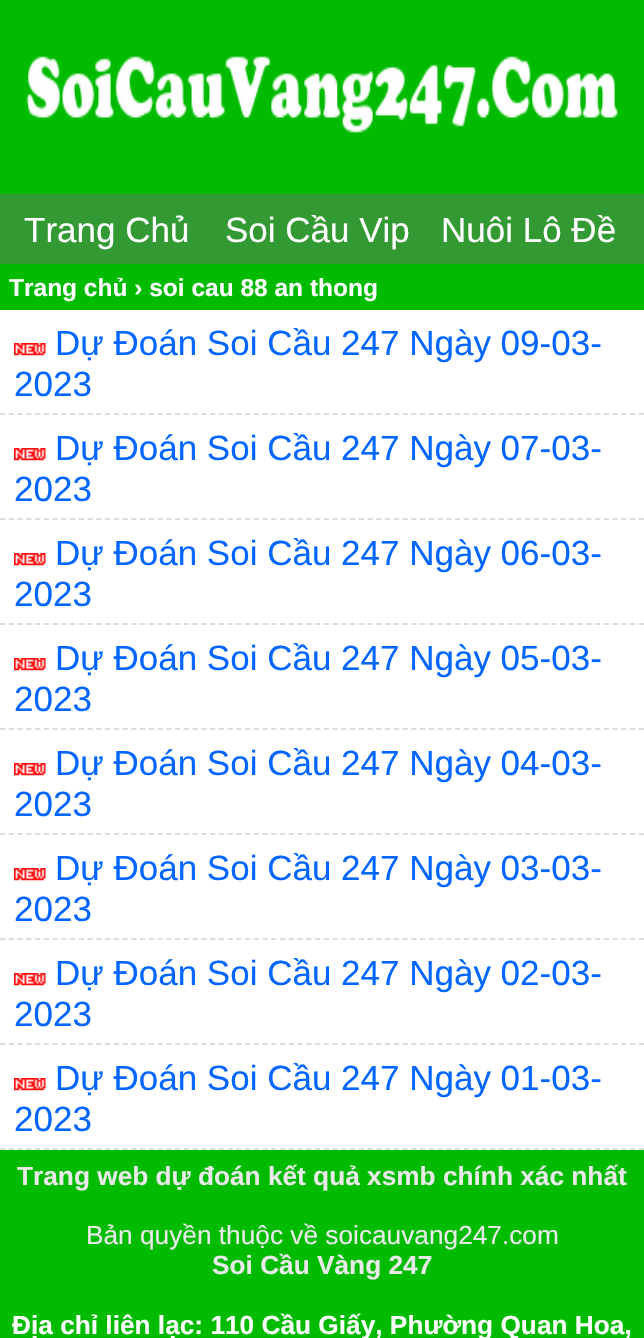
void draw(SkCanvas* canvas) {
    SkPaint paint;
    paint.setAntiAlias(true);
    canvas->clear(0xFF00BB00);
    canvas->drawImageRect(SkImages::DeferredFromEncodedData(SkData::MakeFromFileName("img1.png")), SkRect::MakeXYWH(26, 56, 592, 77), SkSamplingOptions());
    paint.setColor(0xFF339933);
    canvas->drawRect(SkRect::MakeXYWH(0, 194, 644, 70), paint);
    SkFont font1(fontMgr->matchFamilyStyle("Liberation Sans", SkFontStyle::Normal()), 35);
    font1.setSubpixel(true);
    paint.setColor(0xFFFFFFFF);
    canvas->drawString("Trang Chủ", 24, 242, font1, paint);
    canvas->drawString("Soi Cầu Vip", 225, 242, font1, paint);
    canvas->drawString("Nuôi Lô Đề", 441, 242, font1, paint);
    SkFont font2(fontMgr->matchFamilyStyle("Liberation Sans", SkFontStyle::Bold()), 24.5f);
    font2.setSubpixel(true);
    canvas->drawString("Trang chủ › soi cau 88 an thong", 9, 296, font2, paint);
    canvas->drawRect(SkRect::MakeXYWH(0, 310, 644, 840), paint);
    paint.setStyle(SkPaint::kStroke_Style);
    paint.setStrokeWidth(1.8f);
    paint.setColor(0xFFDDDDDD);
    paint.setPathEffect(SkDashPathEffect::Make({{5.25f, 3.5f}}, 0));
    canvas->drawPath(SkPathBuilder().moveTo(0, 414).lineTo(644, 414).detach(), paint);
    paint.setPathEffect(nullptr);
    canvas->drawImageRect(SkImages::DeferredFromEncodedData(SkData::MakeFromFileName("img2.png")), SkRect::MakeXYWH(14, 343, 32, 13), SkSamplingOptions());
    paint.setStyle(SkPaint::kFill_Style);
    paint.setColor(0xFF0066FF);
    canvas->drawString("Dự Đoán Soi Cầu 247 Ngày 09-03-", 55, 355, font1, paint);
    canvas->drawString("2023", 14, 396, font1, paint);
    paint.setStyle(SkPaint::kStroke_Style);
    paint.setColor(0xFFDDDDDD);
    paint.setPathEffect(SkDashPathEffect::Make({{5.25f, 3.5f}}, 0));
    canvas->drawPath(SkPathBuilder().moveTo(0, 519).lineTo(644, 519).detach(), paint);
    paint.setPathEffect(nullptr);
    canvas->drawImageRect(SkImages::DeferredFromEncodedData(SkData::MakeFromFileName("img2.png")), SkRect::MakeXYWH(14, 448, 32, 13), SkSamplingOptions());
    paint.setStyle(SkPaint::kFill_Style);
    paint.setColor(0xFF0066FF);
    canvas->drawString("Dự Đoán Soi Cầu 247 Ngày 07-03-", 55, 460, font1, paint);
    canvas->drawString("2023", 14, 501, font1, paint);
    paint.setStyle(SkPaint::kStroke_Style);
    paint.setColor(0xFFDDDDDD);
    paint.setPathEffect(SkDashPathEffect::Make({{5.25f, 3.5f}}, 0));
    canvas->drawPath(SkPathBuilder().moveTo(0, 624).lineTo(644, 624).detach(), paint);
    paint.setPathEffect(nullptr);
    canvas->drawImageRect(SkImages::DeferredFromEncodedData(SkData::MakeFromFileName("img2.png")), SkRect::MakeXYWH(14, 553, 32, 13), SkSamplingOptions());
    paint.setStyle(SkPaint::kFill_Style);
    paint.setColor(0xFF0066FF);
    canvas->drawString("Dự Đoán Soi Cầu 247 Ngày 06-03-", 55, 565, font1, paint);
    canvas->drawString("2023", 14, 606, font1, paint);
    paint.setStyle(SkPaint::kStroke_Style);
    paint.setColor(0xFFDDDDDD);
    paint.setPathEffect(SkDashPathEffect::Make({{5.25f, 3.5f}}, 0));
    canvas->drawPath(SkPathBuilder().moveTo(0, 729).lineTo(644, 729).detach(), paint);
    paint.setPathEffect(nullptr);
    canvas->drawImageRect(SkImages::DeferredFromEncodedData(SkData::MakeFromFileName("img2.png")), SkRect::MakeXYWH(14, 658, 32, 13), SkSamplingOptions());
    paint.setStyle(SkPaint::kFill_Style);
    paint.setColor(0xFF0066FF);
    canvas->drawString("Dự Đoán Soi Cầu 247 Ngày 05-03-", 55, 670, font1, paint);
    canvas->drawString("2023", 14, 711, font1, paint);
    paint.setStyle(SkPaint::kStroke_Style);
    paint.setColor(0xFFDDDDDD);
    paint.setPathEffect(SkDashPathEffect::Make({{5.25f, 3.5f}}, 0));
    canvas->drawPath(SkPathBuilder().moveTo(0, 834).lineTo(644, 834).detach(), paint);
    paint.setPathEffect(nullptr);
    canvas->drawImageRect(SkImages::DeferredFromEncodedData(SkData::MakeFromFileName("img2.png")), SkRect::MakeXYWH(14, 763, 32, 13), SkSamplingOptions());
    paint.setStyle(SkPaint::kFill_Style);
    paint.setColor(0xFF0066FF);
    canvas->drawString("Dự Đoán Soi Cầu 247 Ngày 04-03-", 55, 775, font1, paint);
    canvas->drawString("2023", 14, 816, font1, paint);
    paint.setStyle(SkPaint::kStroke_Style);
    paint.setColor(0xFFDDDDDD);
    paint.setPathEffect(SkDashPathEffect::Make({{5.25f, 3.5f}}, 0));
    canvas->drawPath(SkPathBuilder().moveTo(0, 939).lineTo(644, 939).detach(), paint);
    paint.setPathEffect(nullptr);
    canvas->drawImageRect(SkImages::DeferredFromEncodedData(SkData::MakeFromFileName("img2.png")), SkRect::MakeXYWH(14, 868, 32, 13), SkSamplingOptions());
    paint.setStyle(SkPaint::kFill_Style);
    paint.setColor(0xFF0066FF);
    canvas->drawString("Dự Đoán Soi Cầu 247 Ngày 03-03-", 55, 880, font1, paint);
    canvas->drawString("2023", 14, 921, font1, paint);
    paint.setStyle(SkPaint::kStroke_Style);
    paint.setColor(0xFFDDDDDD);
    paint.setPathEffect(SkDashPathEffect::Make({{5.25f, 3.5f}}, 0));
    canvas->drawPath(SkPathBuilder().moveTo(0, 1044).lineTo(644, 1044).detach(), paint);
    paint.setPathEffect(nullptr);
    canvas->drawImageRect(SkImages::DeferredFromEncodedData(SkData::MakeFromFileName("img2.png")), SkRect::MakeXYWH(14, 973, 32, 13), SkSamplingOptions());
    paint.setStyle(SkPaint::kFill_Style);
    paint.setColor(0xFF0066FF);
    canvas->drawString("Dự Đoán Soi Cầu 247 Ngày 02-03-", 55, 985, font1, paint);
    canvas->drawString("2023", 14, 1026, font1, paint);
    paint.setStyle(SkPaint::kStroke_Style);
    paint.setColor(0xFFDDDDDD);
    paint.setPathEffect(SkDashPathEffect::Make({{5.25f, 3.5f}}, 0));
    canvas->drawPath(SkPathBuilder().moveTo(0, 1149).lineTo(644, 1149).detach(), paint);
    paint.setPathEffect(nullptr);
    canvas->drawImageRect(SkImages::DeferredFromEncodedData(SkData::MakeFromFileName("img2.png")), SkRect::MakeXYWH(14, 1078, 32, 13), SkSamplingOptions());
    paint.setStyle(SkPaint::kFill_Style);
    paint.setColor(0xFF0066FF);
    canvas->drawString("Dự Đoán Soi Cầu 247 Ngày 01-03-", 55, 1090, font1, paint);
    canvas->drawString("2023", 14, 1131, font1, paint);
    SkFont font3(fontMgr->matchFamilyStyle("Liberation Sans", SkFontStyle::Bold()), 26.25f);
    font3.setSubpixel(true);
    paint.setColor(0xFFE9E9E9);
    canvas->drawString("Trang web dự đoán kết quả xsmb chính xác nhất", 17, 1185, font3, paint);
    SkFont font4(fontMgr->matchFamilyStyle("Liberation Sans", SkFontStyle::Normal()), 26.25f);
    font4.setSubpixel(true);
    canvas->drawString("Bản quyền thuộc về soicauvang247.com", 86, 1244, font4, paint);
    canvas->drawString("Soi Cầu Vàng 247", 212, 1274, font3, paint);
    paint.setColor(0xFFFFFFFF);
    canvas->drawString("Địa chỉ liên lạc: 110 Cầu Giấy, Phường Quan Hoa,", 12, 1334, font3, paint);
}
